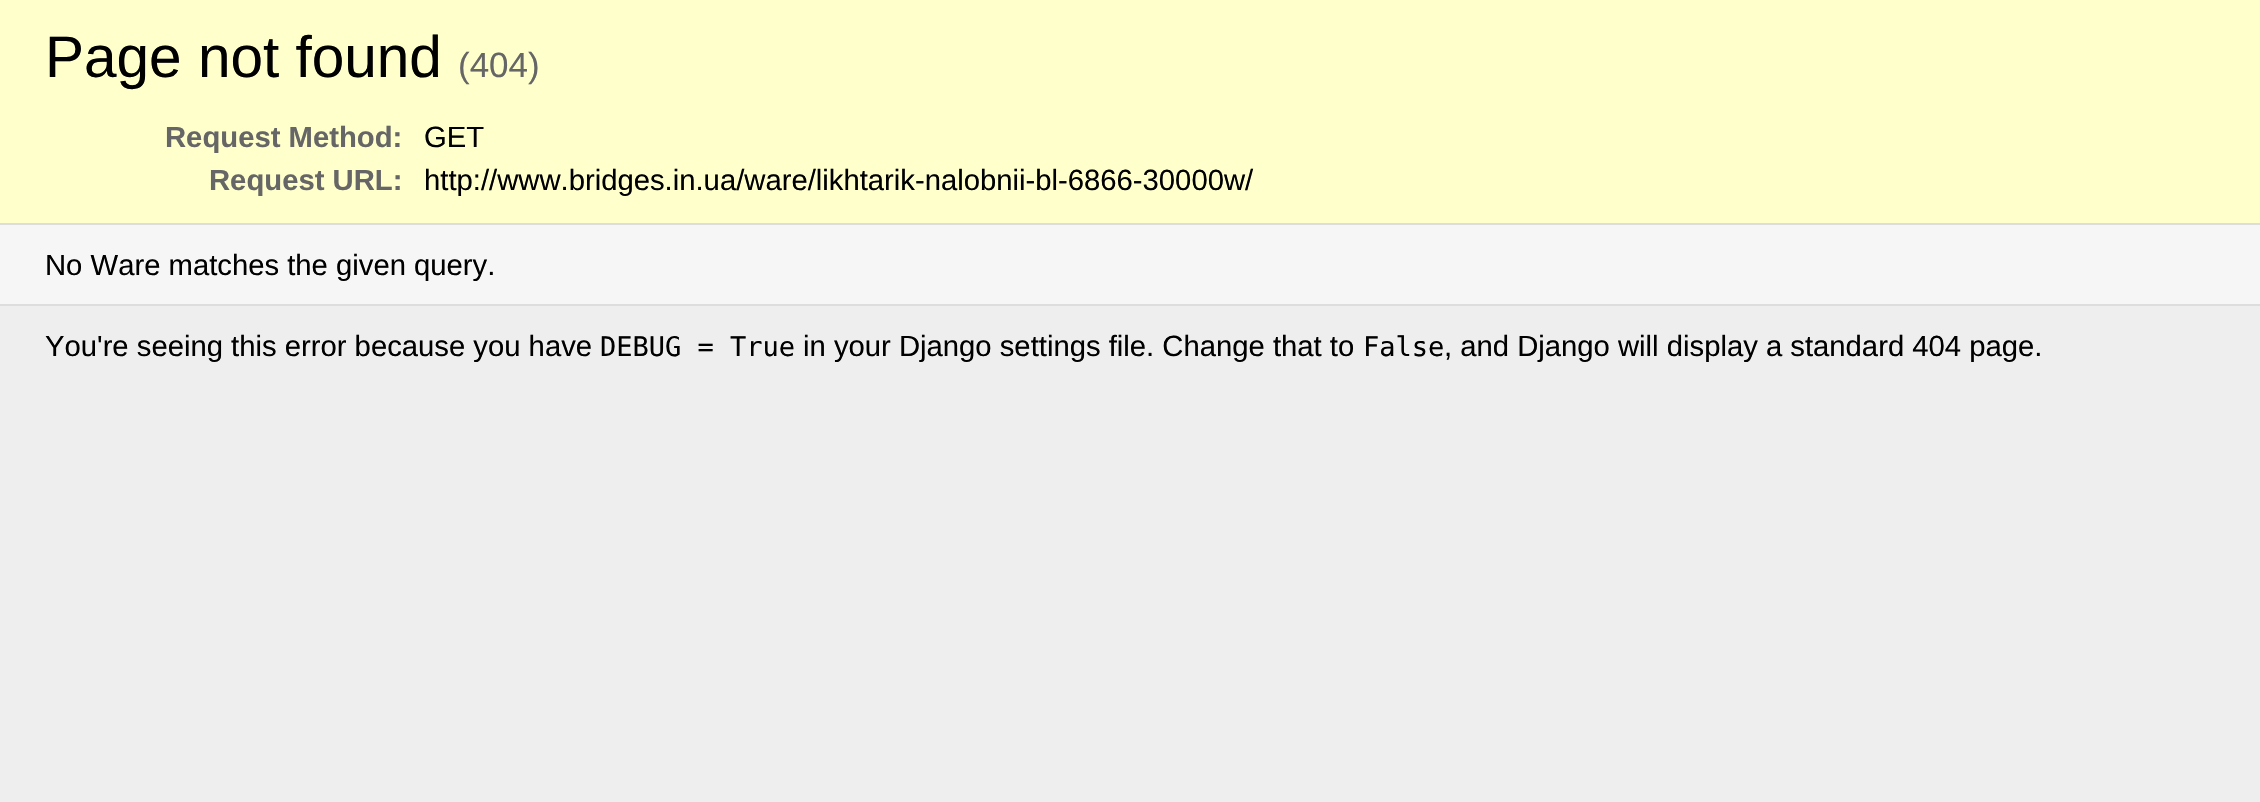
void draw(SkCanvas* canvas) {
    SkPaint paint;
    paint.setAntiAlias(true);
    canvas->clear(0xFFEEEEEE);
    paint.setColor(0xFFFFFFCC);
    canvas->drawRect(SkRect::MakeXYWH(0, 0, 2260, 223), paint);
    paint.setColor(0xFFDDDDDD);
    canvas->drawRect(SkRect::MakeXYWH(0, 223, 2260, 2), paint);
    SkFont font1(fontMgr->matchFamilyStyle("Liberation Sans", SkFontStyle::Normal()), 58.5f);
    font1.setSubpixel(true);
    paint.setColor(0xFF000000);
    canvas->drawString("Page not found", 45, 77, font1, paint);
    SkFont font2(fontMgr->matchFamilyStyle("Liberation Sans", SkFontStyle::Normal()), 35);
    font2.setSubpixel(true);
    paint.setColor(0xFF666666);
    canvas->drawString("(404)", 458, 77, font2, paint);
    SkFont font3(fontMgr->matchFamilyStyle("Liberation Sans", SkFontStyle::Bold()), 29.25f);
    font3.setSubpixel(true);
    canvas->drawString("Request Method:", 165, 147, font3, paint);
    SkFont font4(fontMgr->matchFamilyStyle("Liberation Sans", SkFontStyle::Normal()), 29.25f);
    font4.setSubpixel(true);
    paint.setColor(0xFF000000);
    canvas->drawString("GET", 424, 147, font4, paint);
    paint.setColor(0xFF666666);
    canvas->drawString("Request URL:", 209, 190, font3, paint);
    paint.setColor(0xFF000000);
    canvas->drawString("http://www.bridges.in.ua/ware/likhtarik-nalobnii-bl-6866-30000w/", 424, 190, font4, paint);
    paint.setColor(0xFFF6F6F6);
    canvas->drawRect(SkRect::MakeXYWH(0, 225, 2260, 79), paint);
    paint.setColor(0xFFDDDDDD);
    canvas->drawRect(SkRect::MakeXYWH(0, 304, 2260, 2), paint);
    paint.setColor(0xFF000000);
    canvas->drawString("No Ware matches the given query.", 45, 275, font4, paint);
    canvas->drawString("You're seeing this error because you have", 45, 356, font4, paint);
    SkFont font5(fontMgr->matchFamilyStyle("DejaVu Sans Mono", SkFontStyle::Normal()), 27);
    font5.setSubpixel(true);
    canvas->drawString("DEBUG = True", 600, 356, font5, paint);
    canvas->drawString("in your Django settings file. Change that to", 803, 356, font4, paint);
    canvas->drawString("False", 1363, 356, font5, paint);
    canvas->drawString(", and Django will display a standard 404 page.", 1444, 356, font4, paint);
}
